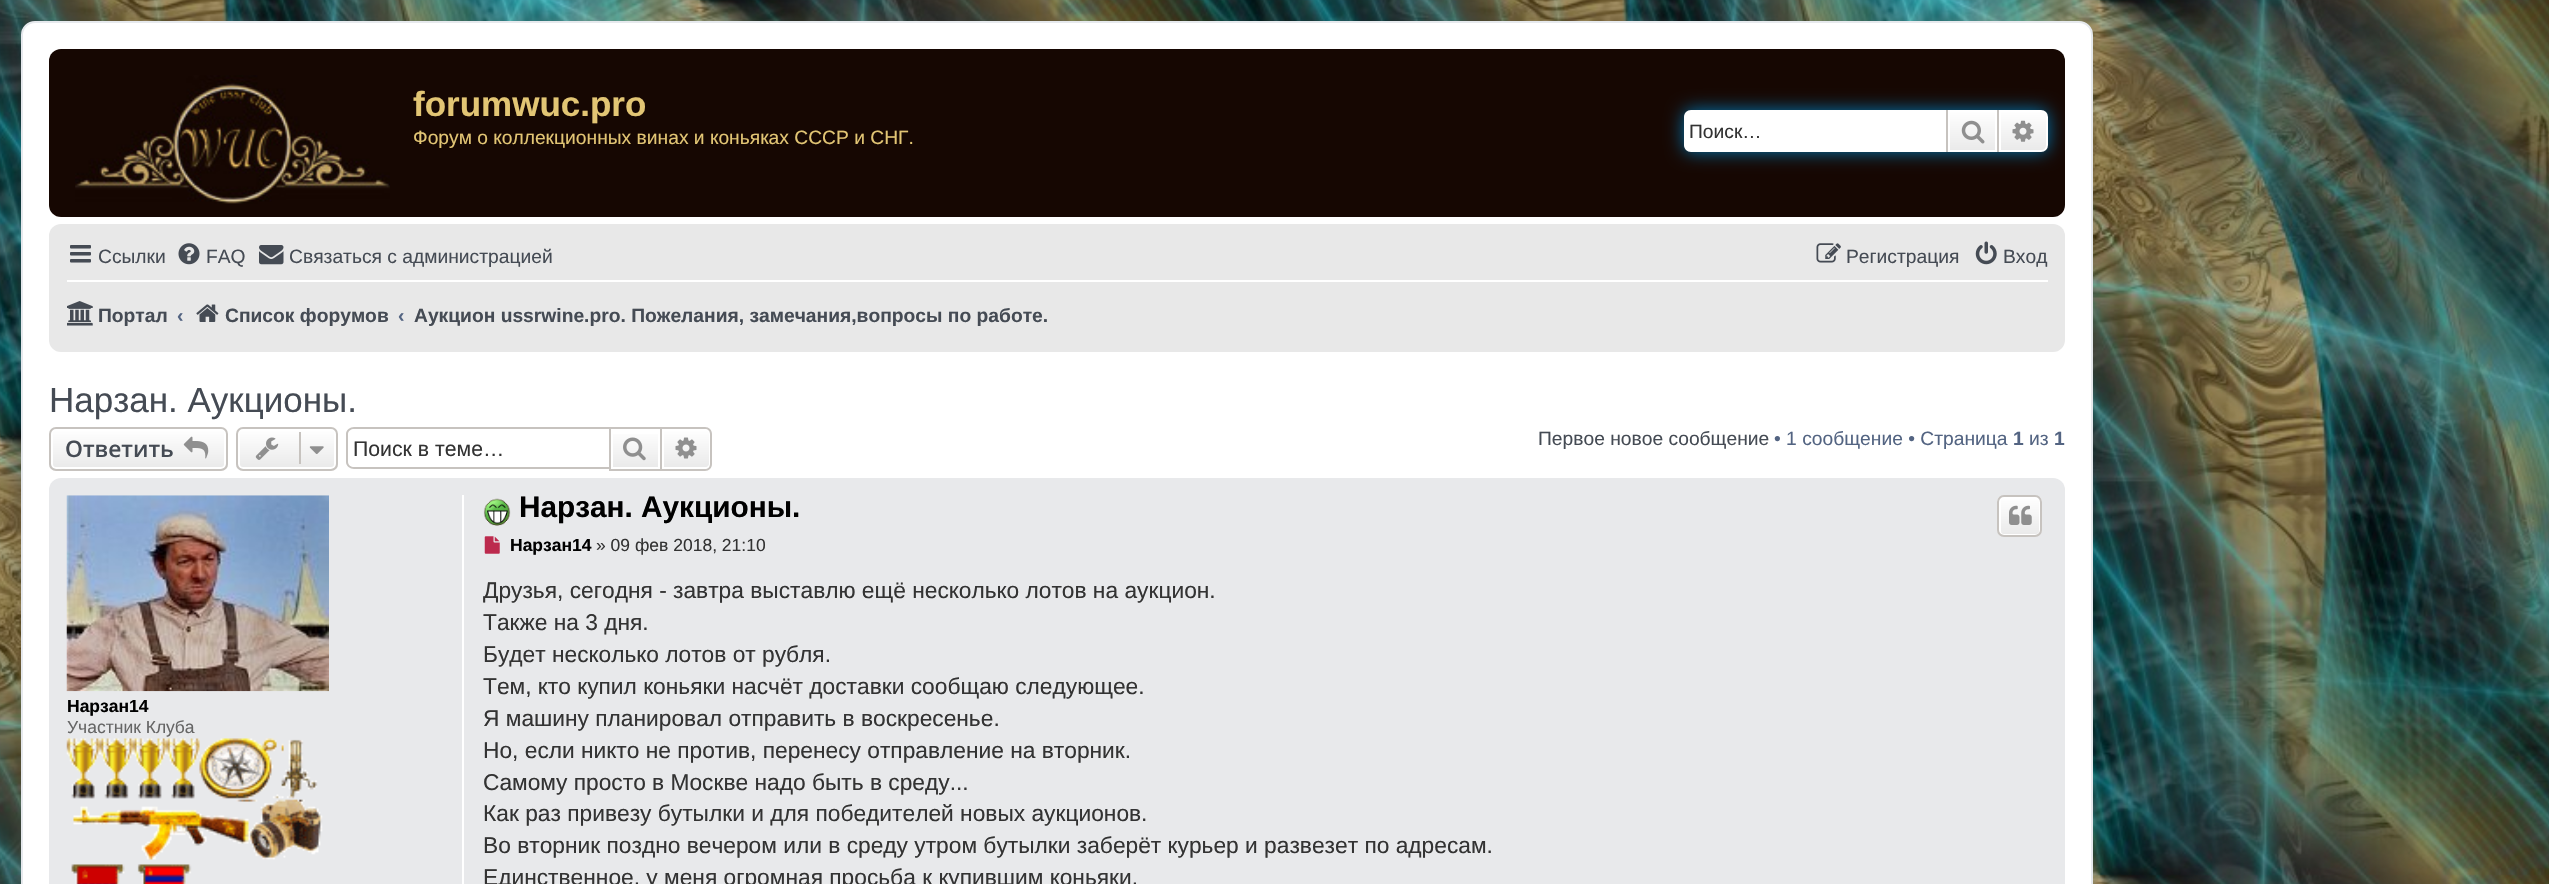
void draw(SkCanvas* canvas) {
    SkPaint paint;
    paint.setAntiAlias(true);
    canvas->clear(0xFFFFFFFF);
    canvas->drawImageRect(SkImages::DeferredFromEncodedData(SkData::MakeFromFileName("img1.png")), SkRect::MakeXYWH(0, 0, 2549, 884), SkSamplingOptions());
    paint.setColor(0xFFFFFFFF);
    canvas->drawRoundRect(SkRect::MakeXYWH(22, 22, 2070, 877), 13, 13, paint);
    paint.setStyle(SkPaint::kStroke_Style);
    paint.setStrokeWidth(2);
    paint.setColor(0xFFE6E9ED);
    canvas->drawRoundRect(SkRect::MakeXYWH(22, 22, 2070, 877), 13, 13, paint);
    paint.setStyle(SkPaint::kFill_Style);
    paint.setColor(0xFF160702);
    canvas->drawRoundRect(SkRect::MakeXYWH(49, 49, 2016, 168), 12, 12, paint);
    canvas->drawImageRect(SkImages::DeferredFromEncodedData(SkData::MakeFromFileName("img2.png")), SkRect::MakeXYWH(75, 75, 315, 129), SkSamplingOptions());
    SkFont font1(fontMgr->matchFamilyStyle("Liberation Sans", SkFontStyle::Bold()), 35);
    font1.setSubpixel(true);
    paint.setColor(0xFFE2C574);
    canvas->drawString("forumwuc.pro", 413, 116, font1, paint);
    SkFont font2(fontMgr->matchFamilyStyle("Liberation Sans", SkFontStyle::Normal()), 19.25f);
    font2.setSubpixel(true);
    canvas->drawString("Форум о коллекционных винах и коньяках СССР и СНГ.", 413, 144, font2, paint);
    paint.setColor(0xFF0075B0);
    paint.setMaskFilter(SkMaskFilter::MakeBlur(kNormal_SkBlurStyle, 9));
    canvas->drawRoundRect(SkRect::MakeXYWH(1684, 110, 364, 42), 7, 7, paint);
    paint.setMaskFilter(nullptr);
    paint.setColor(0xFFFFFFFF);
    canvas->drawPath(SkPathBuilder().moveTo(1691, 110).lineTo(1946, 110).lineTo(1946, 152).lineTo(1691, 152).cubicTo(1687, 152, 1684, 149, 1684, 145).lineTo(1684, 117).cubicTo(1684, 113, 1687, 110, 1691, 110).close().detach(), paint);
    paint.setColor(0xFF333333);
    canvas->drawString("Поиск…", 1689, 138, font2, paint);
    {
        const SkColor colors[] = {0xFFFFFFFF, 0xFFE9E9E9};
        const float stops[] = {0, 1};
        const SkPoint ends[] = {{1972, 110}, {1972, 152}};
        paint.setShader(SkGradientShader::MakeLinear(ends, colors, stops, 2, SkTileMode::kClamp));
        paint.setAlpha(255);
    }
    canvas->drawRect(SkRect::MakeXYWH(1950, 112, 45, 38), paint);
    paint.setStyle(SkPaint::kStroke_Style);
    paint.setShader(nullptr);
    paint.setColor(0xFFFFFFFF);
    canvas->drawRect(SkRect::MakeXYWH(1949, 111, 47, 40), paint);
    paint.setStyle(SkPaint::kFill_Style);
    paint.setColor(0xFFC7C3BF);
    canvas->drawRect(SkRect::MakeXYWH(1997, 110, 2, 42), paint);
    canvas->drawRect(SkRect::MakeXYWH(1946, 110, 2, 42), paint);
    canvas->drawImageRect(SkImages::DeferredFromEncodedData(SkData::MakeFromFileName("img3.png")), SkRect::MakeXYWH(1961, 120, 24, 24), SkSamplingOptions());
    {
        const SkColor colors[] = {0xFFFFFFFF, 0xFFE9E9E9};
        const float stops[] = {0, 1};
        const SkPoint ends[] = {{2023, 110}, {2023, 152}};
        paint.setShader(SkGradientShader::MakeLinear(ends, colors, stops, 2, SkTileMode::kClamp));
        paint.setAlpha(255);
    }
    canvas->drawPath(SkPathBuilder().moveTo(2000, 111).lineTo(2041, 111).cubicTo(2044.5f, 111, 2047, 113.5f, 2047, 117).lineTo(2047, 145).cubicTo(2047, 148.5f, 2044.5f, 151, 2041, 151).lineTo(2000, 151).close().detach(), paint);
    paint.setStyle(SkPaint::kStroke_Style);
    paint.setShader(nullptr);
    paint.setColor(0xFFFFFFFF);
    canvas->drawPath(SkPathBuilder().moveTo(2000, 111).lineTo(2041, 111).cubicTo(2044.5f, 111, 2047, 113.5f, 2047, 117).lineTo(2047, 145).cubicTo(2047, 148.5f, 2044.5f, 151, 2041, 151).lineTo(2000, 151).close().detach(), paint);
    canvas->drawImageRect(SkImages::DeferredFromEncodedData(SkData::MakeFromFileName("img4.png")), SkRect::MakeXYWH(2012, 120, 22, 22), SkSamplingOptions());
    paint.setStyle(SkPaint::kFill_Style);
    paint.setColor(0xFFE8E8E8);
    canvas->drawRoundRect(SkRect::MakeXYWH(49, 224, 2016, 128), 12, 12, paint);
    canvas->drawImageRect(SkImages::DeferredFromEncodedData(SkData::MakeFromFileName("img5.png")), SkRect::MakeXYWH(70, 245, 21, 18), SkSamplingOptions());
    paint.setColor(0xFF454B54);
    canvas->drawString("Ссылки", 98, 263, font2, paint);
    canvas->drawImageRect(SkImages::DeferredFromEncodedData(SkData::MakeFromFileName("img6.png")), SkRect::MakeXYWH(178, 243, 22, 22), SkSamplingOptions());
    canvas->drawString("FAQ", 206, 263, font2, paint);
    canvas->drawImageRect(SkImages::DeferredFromEncodedData(SkData::MakeFromFileName("img7.png")), SkRect::MakeXYWH(259, 245, 25, 20), SkSamplingOptions());
    canvas->drawString("Связаться с администрацией", 289, 263, font2, paint);
    canvas->drawImageRect(SkImages::DeferredFromEncodedData(SkData::MakeFromFileName("img8.png")), SkRect::MakeXYWH(1816, 243, 25, 20), SkSamplingOptions());
    canvas->drawString("Регистрация", 1846, 263, font2, paint);
    canvas->drawImageRect(SkImages::DeferredFromEncodedData(SkData::MakeFromFileName("img9.png")), SkRect::MakeXYWH(1975, 241, 22, 24), SkSamplingOptions());
    canvas->drawString("Вход", 2003, 263, font2, paint);
    paint.setColor(0xFFFFFFFF);
    canvas->drawRect(SkRect::MakeXYWH(67, 280, 1981, 2), paint);
    canvas->drawImageRect(SkImages::DeferredFromEncodedData(SkData::MakeFromFileName("img10.png")), SkRect::MakeXYWH(67, 301, 26, 25), SkSamplingOptions());
    SkFont font3(fontMgr->matchFamilyStyle("Liberation Sans", SkFontStyle::Bold()), 19.25f);
    font3.setSubpixel(true);
    paint.setColor(0xFF454B54);
    canvas->drawString("Портал", 98, 322, font3, paint);
    paint.setColor(0xFF536482);
    canvas->drawString("‹", 177, 322, font3, paint);
    canvas->drawImageRect(SkImages::DeferredFromEncodedData(SkData::MakeFromFileName("img11.png")), SkRect::MakeXYWH(196, 304, 23, 18), SkSamplingOptions());
    paint.setColor(0xFF454B54);
    canvas->drawString("Список форумов", 225, 322, font3, paint);
    paint.setColor(0xFF536482);
    canvas->drawString("‹", 398, 322, font3, paint);
    paint.setColor(0xFF454B54);
    canvas->drawString("Аукцион ussrwine.pro. Пожелания, замечания,вопросы по работе.", 414, 322, font3, paint);
    SkFont font4(fontMgr->matchFamilyStyle("Liberation Sans", SkFontStyle::Normal()), 35);
    font4.setSubpixel(true);
    canvas->drawString("Нарзан. Аукционы.", 49, 412, font4, paint);
    canvas->save();
    canvas->clipPath(SkPathBuilder().moveTo(56, 427).lineTo(221, 427).cubicTo(225, 427, 228, 430, 228, 434).lineTo(228, 464).cubicTo(228, 468, 225, 471, 221, 471).lineTo(56, 471).cubicTo(52, 471, 49, 468, 49, 464).lineTo(49, 434).cubicTo(49, 430, 52, 427, 56, 427).close().detach(), true);
    {
        const SkColor colors[] = {0xFFFFFFFF, 0xFFE9E9E9};
        const float stops[] = {0, 1};
        const SkPoint ends[] = {{138, 429}, {138, 469}};
        paint.setShader(SkGradientShader::MakeLinear(ends, colors, stops, 2, SkTileMode::kClamp));
        paint.setAlpha(255);
    }
    canvas->drawRect(SkRect::MakeXYWH(49, 429, 179, 40), paint);
    canvas->restore();
    paint.setStyle(SkPaint::kStroke_Style);
    paint.setShader(nullptr);
    paint.setColor(0xFFFFFFFF);
    canvas->drawRoundRect(SkRect::MakeXYWH(52, 430, 173, 38), 4, 4, paint);
    paint.setColor(0xFFC7C3BF);
    canvas->drawRoundRect(SkRect::MakeXYWH(50, 428, 177, 42), 6, 6, paint);
    SkFont font5(fontMgr->matchFamilyStyle("Open Sans", SkFontStyle(600, SkFontStyle::kNormal_Width, SkFontStyle::kUpright_Slant)), 22.75f);
    font5.setSubpixel(true);
    paint.setStyle(SkPaint::kFill_Style);
    paint.setColor(0xFF454B54);
    canvas->drawString("Ответить", 65, 457, font5, paint);
    canvas->drawImageRect(SkImages::DeferredFromEncodedData(SkData::MakeFromFileName("img12.png")), SkRect::MakeXYWH(183, 436, 26, 23), SkSamplingOptions());
    canvas->save();
    canvas->clipPath(SkPathBuilder().moveTo(243, 427).lineTo(331, 427).cubicTo(335, 427, 338, 430, 338, 434).lineTo(338, 464).cubicTo(338, 468, 335, 471, 331, 471).lineTo(243, 471).cubicTo(239, 471, 236, 468, 236, 464).lineTo(236, 434).cubicTo(236, 430, 239, 427, 243, 427).close().detach(), true);
    {
        const SkColor colors[] = {0xFFFFFFFF, 0xFFE9E9E9};
        const float stops[] = {0, 1};
        const SkPoint ends[] = {{287, 429}, {287, 469}};
        paint.setShader(SkGradientShader::MakeLinear(ends, colors, stops, 2, SkTileMode::kClamp));
        paint.setAlpha(255);
    }
    canvas->drawRect(SkRect::MakeXYWH(236, 429, 102, 40), paint);
    canvas->restore();
    paint.setStyle(SkPaint::kStroke_Style);
    paint.setShader(nullptr);
    paint.setColor(0xFFFFFFFF);
    canvas->drawRoundRect(SkRect::MakeXYWH(239, 430, 96, 38), 4, 4, paint);
    paint.setColor(0xFFC7C3BF);
    canvas->drawRoundRect(SkRect::MakeXYWH(237, 428, 100, 42), 6, 6, paint);
    canvas->drawImageRect(SkImages::DeferredFromEncodedData(SkData::MakeFromFileName("img13.png")), SkRect::MakeXYWH(255, 437, 24, 23), SkSamplingOptions());
    paint.setStyle(SkPaint::kFill_Style);
    canvas->drawRect(SkRect::MakeXYWH(299, 432, 2, 32), paint);
    canvas->drawImageRect(SkImages::DeferredFromEncodedData(SkData::MakeFromFileName("img14.png")), SkRect::MakeXYWH(309, 446, 15, 8), SkSamplingOptions());
    canvas->drawPath(SkPathBuilder(SkPathFillType::kEvenOdd).moveTo(354, 427).lineTo(609, 427).lineTo(609, 469).lineTo(354, 469).cubicTo(350, 469, 346, 466, 346, 462).lineTo(346, 434).cubicTo(346, 430, 350, 427, 354, 427).close().moveTo(354, 429).lineTo(609, 429).lineTo(609, 467).lineTo(354, 467).cubicTo(351, 467, 348, 465, 348, 462).lineTo(348, 434).cubicTo(348, 431, 351, 429, 354, 429).close().detach(), paint);
    SkFont font6(fontMgr->matchFamilyStyle("Liberation Sans", SkFontStyle::Normal()), 21.25f);
    font6.setSubpixel(true);
    paint.setColor(0xFF333333);
    canvas->drawString("Поиск в теме…", 353, 456, font6, paint);
    {
        const SkColor colors[] = {0xFFFFFFFF, 0xFFE9E9E9};
        const float stops[] = {0, 1};
        const SkPoint ends[] = {{635, 429}, {635, 469}};
        paint.setShader(SkGradientShader::MakeLinear(ends, colors, stops, 2, SkTileMode::kClamp));
        paint.setAlpha(255);
    }
    canvas->drawRect(SkRect::MakeXYWH(613, 434, 45, 33), paint);
    paint.setStyle(SkPaint::kStroke_Style);
    paint.setShader(nullptr);
    paint.setColor(0xFFC7C3BF);
    canvas->drawRect(SkRect::MakeXYWH(610, 428, 51, 42), paint);
    canvas->drawImageRect(SkImages::DeferredFromEncodedData(SkData::MakeFromFileName("img15.png")), SkRect::MakeXYWH(623, 437, 23, 24), SkSamplingOptions());
    paint.setStyle(SkPaint::kFill_Style);
    {
        const SkColor colors[] = {0xFFFFFFFF, 0xFFE9E9E9};
        const float stops[] = {0, 1};
        const SkPoint ends[] = {{686, 429}, {686, 469}};
        paint.setShader(SkGradientShader::MakeLinear(ends, colors, stops, 2, SkTileMode::kClamp));
        paint.setAlpha(255);
    }
    canvas->drawPath(SkPathBuilder().moveTo(663, 430).lineTo(706, 430).cubicTo(708, 430, 710, 432, 710, 434).lineTo(710, 464).cubicTo(710, 466, 708, 468, 706, 468).lineTo(663, 468).close().detach(), paint);
    paint.setStyle(SkPaint::kStroke_Style);
    paint.setShader(nullptr);
    paint.setColor(0xFFFFFFFF);
    canvas->drawPath(SkPathBuilder().moveTo(663, 430).lineTo(706, 430).cubicTo(708, 430, 710, 432, 710, 434).lineTo(710, 464).cubicTo(710, 466, 708, 468, 706, 468).lineTo(663, 468).close().detach(), paint);
    paint.setStyle(SkPaint::kFill_Style);
    paint.setColor(0xFFC7C3BF);
    canvas->drawPath(SkPathBuilder(SkPathFillType::kEvenOdd).moveTo(662, 427).lineTo(705, 427).cubicTo(709, 427, 712, 430, 712, 434).lineTo(712, 464).cubicTo(712, 468, 709, 471, 705, 471).lineTo(662, 471).close().moveTo(662, 429).lineTo(705, 429).cubicTo(708, 429, 710, 431, 710, 434).lineTo(710, 464).cubicTo(710, 467, 708, 469, 705, 469).lineTo(662, 469).close().detach(), paint);
    canvas->drawImageRect(SkImages::DeferredFromEncodedData(SkData::MakeFromFileName("img16.png")), SkRect::MakeXYWH(675, 437, 22, 22), SkSamplingOptions());
    paint.setColor(0xFF454B54);
    canvas->drawString("Первое новое сообщение", 1538, 445, font2, paint);
    paint.setColor(0xFF536482);
    canvas->drawString("• 1 сообщение • Страница", 1774, 445, font2, paint);
    canvas->drawString("1", 2013, 445, font3, paint);
    canvas->drawString("из", 2029, 445, font2, paint);
    canvas->drawString("1", 2054, 445, font3, paint);
    paint.setColor(0xFFE8E9EB);
    canvas->drawRoundRect(SkRect::MakeXYWH(49, 478, 2016, 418), 12, 12, paint);
    paint.setColor(0xFFFFFFFF);
    canvas->drawRect(SkRect::MakeXYWH(462, 495, 2, 389), paint);
    canvas->drawImageRect(SkImages::DeferredFromEncodedData(SkData::MakeFromFileName("img17.png")), SkRect::MakeXYWH(66, 495, 263, 197), SkSamplingOptions());
    SkFont font7(fontMgr->matchFamilyStyle("Liberation Sans", SkFontStyle::Bold()), 17.5f);
    font7.setSubpixel(true);
    paint.setColor(0xFF000000);
    canvas->drawString("Нарзан14", 67, 712, font7, paint);
    SkFont font8(fontMgr->matchFamilyStyle("Liberation Sans", SkFontStyle::Normal()), 17.5f);
    font8.setSubpixel(true);
    paint.setColor(0xFF666666);
    canvas->drawString("Участник Клуба", 67, 733, font8, paint);
    canvas->drawImageRect(SkImages::DeferredFromEncodedData(SkData::MakeFromFileName("img18.png")), SkRect::MakeXYWH(66, 738, 257, 146), SkSamplingOptions());
    canvas->drawImageRect(SkImages::DeferredFromEncodedData(SkData::MakeFromFileName("img19.png")), SkRect::MakeXYWH(483, 498, 28, 28), SkSamplingOptions());
    SkFont font9(fontMgr->matchFamilyStyle("Liberation Sans", SkFontStyle::Bold()), 29.75f);
    font9.setSubpixel(true);
    paint.setColor(0xFF000000);
    canvas->drawString("Нарзан. Аукционы.", 519, 517, font9, paint);
    canvas->save();
    canvas->clipPath(SkPathBuilder().moveTo(2004, 495).lineTo(2035, 495).cubicTo(2039, 495, 2042, 498, 2042, 502).lineTo(2042, 530).cubicTo(2042, 534, 2039, 537, 2035, 537).lineTo(2004, 537).cubicTo(2000, 537, 1997, 534, 1997, 530).lineTo(1997, 502).cubicTo(1997, 498, 2000, 495, 2004, 495).close().detach(), true);
    {
        const SkColor colors[] = {0xFFFFFFFF, 0xFFE9E9E9};
        const float stops[] = {0, 1};
        const SkPoint ends[] = {{2020, 497}, {2020, 536}};
        paint.setShader(SkGradientShader::MakeLinear(ends, colors, stops, 2, SkTileMode::kClamp));
        paint.setAlpha(255);
    }
    canvas->drawRect(SkRect::MakeXYWH(1997, 497, 45, 39), paint);
    canvas->restore();
    paint.setStyle(SkPaint::kStroke_Style);
    paint.setShader(nullptr);
    paint.setColor(0xFFFFFFFF);
    canvas->drawRoundRect(SkRect::MakeXYWH(2000, 498, 40, 37), 4, 4, paint);
    paint.setColor(0xFFC7C3BF);
    canvas->drawRoundRect(SkRect::MakeXYWH(1998, 496, 43, 40), 6, 6, paint);
    canvas->drawImageRect(SkImages::DeferredFromEncodedData(SkData::MakeFromFileName("img20.png")), SkRect::MakeXYWH(2009, 505, 23, 20), SkSamplingOptions());
    canvas->drawImageRect(SkImages::DeferredFromEncodedData(SkData::MakeFromFileName("img21.png")), SkRect::MakeXYWH(484, 536, 16, 18), SkSamplingOptions());
    paint.setStyle(SkPaint::kFill_Style);
    paint.setColor(0xFF000000);
    canvas->drawString("Нарзан14", 510, 551, font7, paint);
    paint.setColor(0xFF333333);
    canvas->drawString("» 09 фев 2018, 21:10", 596, 551, font8, paint);
    canvas->save();
    canvas->clipRect(SkRect::MakeXYWH(483, 576, 1565, 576));
    SkFont font10(fontMgr->matchFamilyStyle("Liberation Sans", SkFontStyle::Normal()), 22.75f);
    font10.setSubpixel(true);
    canvas->drawString("Друзья, сегодня - завтра выставлю ещё несколько лотов на аукцион.", 483, 598, font10, paint);
    canvas->restore();
    canvas->drawString("Также на 3 дня.", 483, 630, font10, paint);
    canvas->drawString("Будет несколько лотов от рубля.", 483, 662, font10, paint);
    canvas->drawString("Тем, кто купил коньяки насчёт доставки сообщаю следующее.", 483, 694, font10, paint);
    canvas->drawString("Я машину планировал отправить в воскресенье.", 483, 726, font10, paint);
    canvas->drawString("Но, если никто не против, перенесу отправление на вторник.", 483, 758, font10, paint);
    canvas->drawString("Самому просто в Москве надо быть в среду...", 483, 790, font10, paint);
    canvas->drawString("Как раз привезу бутылки и для победителей новых аукционов.", 483, 821, font10, paint);
    canvas->drawString("Во вторник поздно вечером или в среду утром бутылки заберёт курьер и развезет по адресам.", 483, 853, font10, paint);
    canvas->drawString("Единственное, у меня огромная просьба к купившим коньяки.", 483, 885, font10, paint);
}
